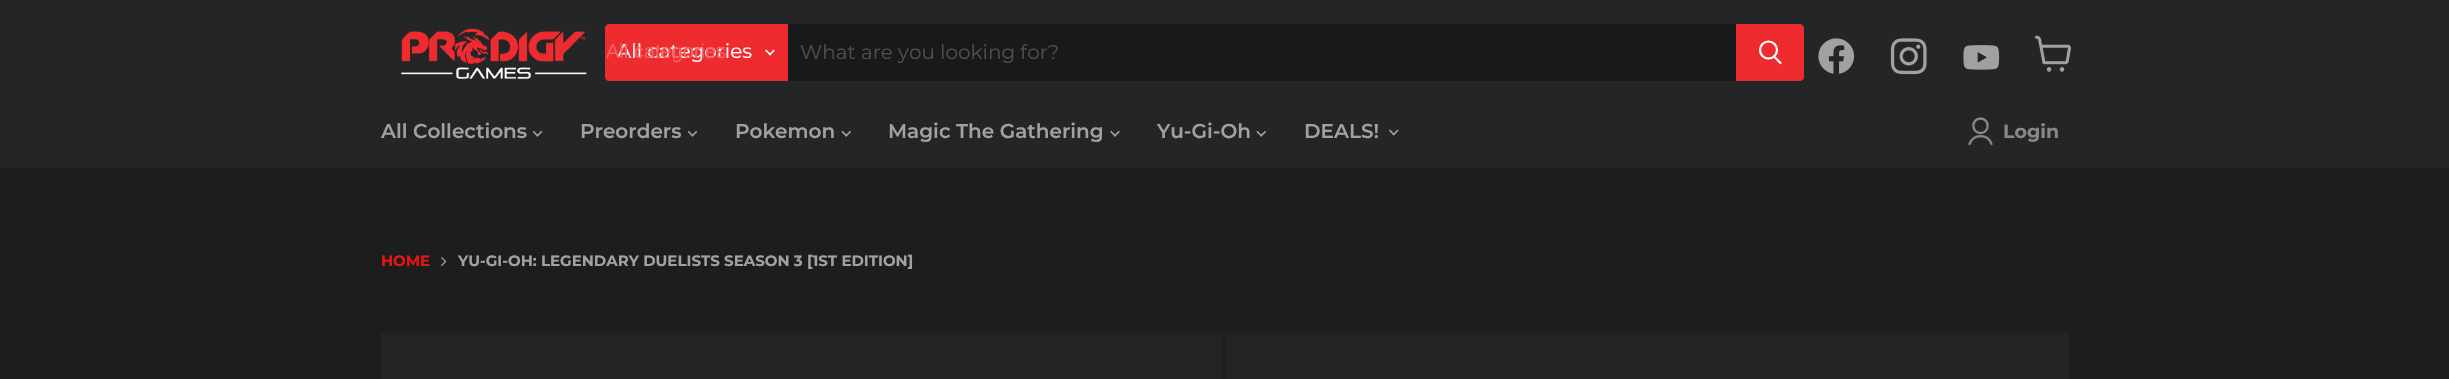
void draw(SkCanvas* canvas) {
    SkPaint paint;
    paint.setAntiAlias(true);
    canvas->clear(0xFF1C1E1E);
    paint.setColor(0xFF242526);
    canvas->drawRect(SkRect::MakeXYWH(0, 0, 2449, 168), paint);
    canvas->drawImageRect(SkImages::DeferredFromEncodedData(SkData::MakeFromFileName("img1.png")), SkRect::MakeXYWH(401, 28, 186, 51), SkSamplingOptions());
    paint.setColor(0xFFEE2C2F);
    canvas->drawPath(SkPathBuilder().moveTo(609, 24).lineTo(788, 24).lineTo(788, 81).lineTo(609, 81).cubicTo(607, 81, 605, 79, 605, 77).lineTo(605, 28).cubicTo(605, 26, 607, 24, 609, 24).close().detach(), paint);
    SkFont font1(fontMgr->matchFamilyStyle("Montserrat", SkFontStyle::Normal()), 20);
    font1.setSubpixel(true);
    paint.setColor(0xFFFFFFFF);
    canvas->drawString("All categories", 617, 58, font1, paint);
    SkFont font2(fontMgr->matchFamilyStyle("Liberation Sans", SkFontStyle::Normal()), 20);
    font2.setSubpixel(true);
    paint.setColor(0xFFF26062);
    canvas->drawString("All categories", 606, 58, font2, paint);
    canvas->drawImageRect(SkImages::DeferredFromEncodedData(SkData::MakeFromFileName("img2.png")), SkRect::MakeXYWH(765, 49, 10, 7), SkSamplingOptions());
    paint.setColor(0xFF18191A);
    canvas->drawRect(SkRect::MakeXYWH(788, 24, 948, 57), paint);
    paint.setColor(0xFF4F4F50);
    canvas->drawString("What are you looking for?", 800, 59, font1, paint);
    paint.setColor(0xFFEE2C2F);
    canvas->drawPath(SkPathBuilder().moveTo(1736.5f, 24.5f).lineTo(1800, 24.5f).cubicTo(1802, 24.5f, 1803.5f, 26, 1803.5f, 28).lineTo(1803.5f, 77).cubicTo(1803.5f, 79, 1802, 80.5f, 1800, 80.5f).lineTo(1736.5f, 80.5f).close().detach(), paint);
    paint.setStyle(SkPaint::kStroke_Style);
    paint.setStrokeWidth(1);
    canvas->drawPath(SkPathBuilder().moveTo(1736.5f, 24.5f).lineTo(1800, 24.5f).cubicTo(1802, 24.5f, 1803.5f, 26, 1803.5f, 28).lineTo(1803.5f, 77).cubicTo(1803.5f, 79, 1802, 80.5f, 1800, 80.5f).lineTo(1736.5f, 80.5f).close().detach(), paint);
    paint.setStrokeWidth(2.2f);
    paint.setStrokeCap(SkPaint::kRound_Cap);
    paint.setColor(0xFFFFFFFF);
    canvas->drawPath(SkPathBuilder().moveTo(1780.5f, 63).lineTo(1774.5f, 57).detach(), paint);
    paint.setStrokeCap(SkPaint::kButt_Cap);
    canvas->drawCircle(1768.5f, 50, 8.5f, paint);
    canvas->drawImageRect(SkImages::DeferredFromEncodedData(SkData::MakeFromFileName("img3.png")), SkRect::MakeXYWH(1818, 38, 37, 36), SkSamplingOptions());
    canvas->drawImageRect(SkImages::DeferredFromEncodedData(SkData::MakeFromFileName("img4.png")), SkRect::MakeXYWH(1890, 38, 37, 37), SkSamplingOptions());
    canvas->drawImageRect(SkImages::DeferredFromEncodedData(SkData::MakeFromFileName("img5.png")), SkRect::MakeXYWH(1963, 45, 37, 25), SkSamplingOptions());
    canvas->drawImageRect(SkImages::DeferredFromEncodedData(SkData::MakeFromFileName("img6.png")), SkRect::MakeXYWH(2035, 35, 36, 37), SkSamplingOptions());
    SkFont font3(fontMgr->matchFamilyStyle("Montserrat", SkFontStyle(600, SkFontStyle::kNormal_Width, SkFontStyle::kUpright_Slant)), 20);
    font3.setSubpixel(true);
    paint.setStyle(SkPaint::kFill_Style);
    paint.setColor(0xFFA1A1A1);
    canvas->drawString("All Collections", 381, 138, font3, paint);
    canvas->drawImageRect(SkImages::DeferredFromEncodedData(SkData::MakeFromFileName("img7.png")), SkRect::MakeXYWH(533, 130, 10, 7), SkSamplingOptions());
    canvas->drawString("Preorders", 580, 138, font3, paint);
    canvas->drawImageRect(SkImages::DeferredFromEncodedData(SkData::MakeFromFileName("img7.png")), SkRect::MakeXYWH(688, 130, 10, 7), SkSamplingOptions());
    canvas->drawString("Pokemon", 735, 138, font3, paint);
    canvas->drawImageRect(SkImages::DeferredFromEncodedData(SkData::MakeFromFileName("img8.png")), SkRect::MakeXYWH(841, 130, 10, 7), SkSamplingOptions());
    canvas->drawString("Magic The Gathering", 888, 138, font3, paint);
    canvas->drawImageRect(SkImages::DeferredFromEncodedData(SkData::MakeFromFileName("img9.png")), SkRect::MakeXYWH(1110, 130, 10, 7), SkSamplingOptions());
    canvas->drawString("Yu-Gi-Oh", 1157, 138, font3, paint);
    canvas->drawImageRect(SkImages::DeferredFromEncodedData(SkData::MakeFromFileName("img8.png")), SkRect::MakeXYWH(1256, 130, 10, 7), SkSamplingOptions());
    canvas->drawString("DEALS!", 1304, 138, font3, paint);
    canvas->drawImageRect(SkImages::DeferredFromEncodedData(SkData::MakeFromFileName("img10.png")), SkRect::MakeXYWH(1389, 129, 10, 7), SkSamplingOptions());
    paint.setStyle(SkPaint::kStroke_Style);
    paint.setStrokeWidth(2.3f);
    paint.setStrokeCap(SkPaint::kRound_Cap);
    paint.setStrokeJoin(SkPaint::kRound_Join);
    paint.setColor(0xFF888888);
    canvas->drawPath(SkPathBuilder().moveTo(1980.5f, 133).cubicTo(1990, 133, 1990, 118.5f, 1980.5f, 118.5f).cubicTo(1971, 118.5f, 1971, 133, 1980.5f, 133).close().moveTo(1991.5f, 144).cubicTo(1988, 133.5f, 1973.5f, 133.5f, 1969.5f, 144).detach(), paint);
    SkFont font4(fontMgr->matchFamilyStyle("Montserrat", SkFontStyle::Bold()), 19);
    font4.setSubpixel(true);
    paint.setStyle(SkPaint::kFill_Style);
    canvas->drawString("Login", 2003, 138, font4, paint);
    SkFont font5(fontMgr->matchFamilyStyle("Montserrat", SkFontStyle::Bold()), 15);
    font5.setSubpixel(true);
    paint.setColor(0xFFEA1313);
    canvas->drawString("HOME", 381, 266, font5, paint);
    canvas->drawImageRect(SkImages::DeferredFromEncodedData(SkData::MakeFromFileName("img11.png")), SkRect::MakeXYWH(441, 257, 6, 9), SkSamplingOptions());
    paint.setColor(0xFFA1A1A1);
    canvas->drawString("YU-GI-OH: LEGENDARY DUELISTS SEASON 3 [1ST EDITION]", 458, 266, font5, paint);
    paint.setColor(0xFF222424);
    canvas->drawRect(SkRect::MakeXYWH(381, 333, 1688, 46), paint);
    paint.setColor(0xFF1C1E1E);
    canvas->drawRect(SkRect::MakeXYWH(1223, 333, 3, 46), paint);
}
